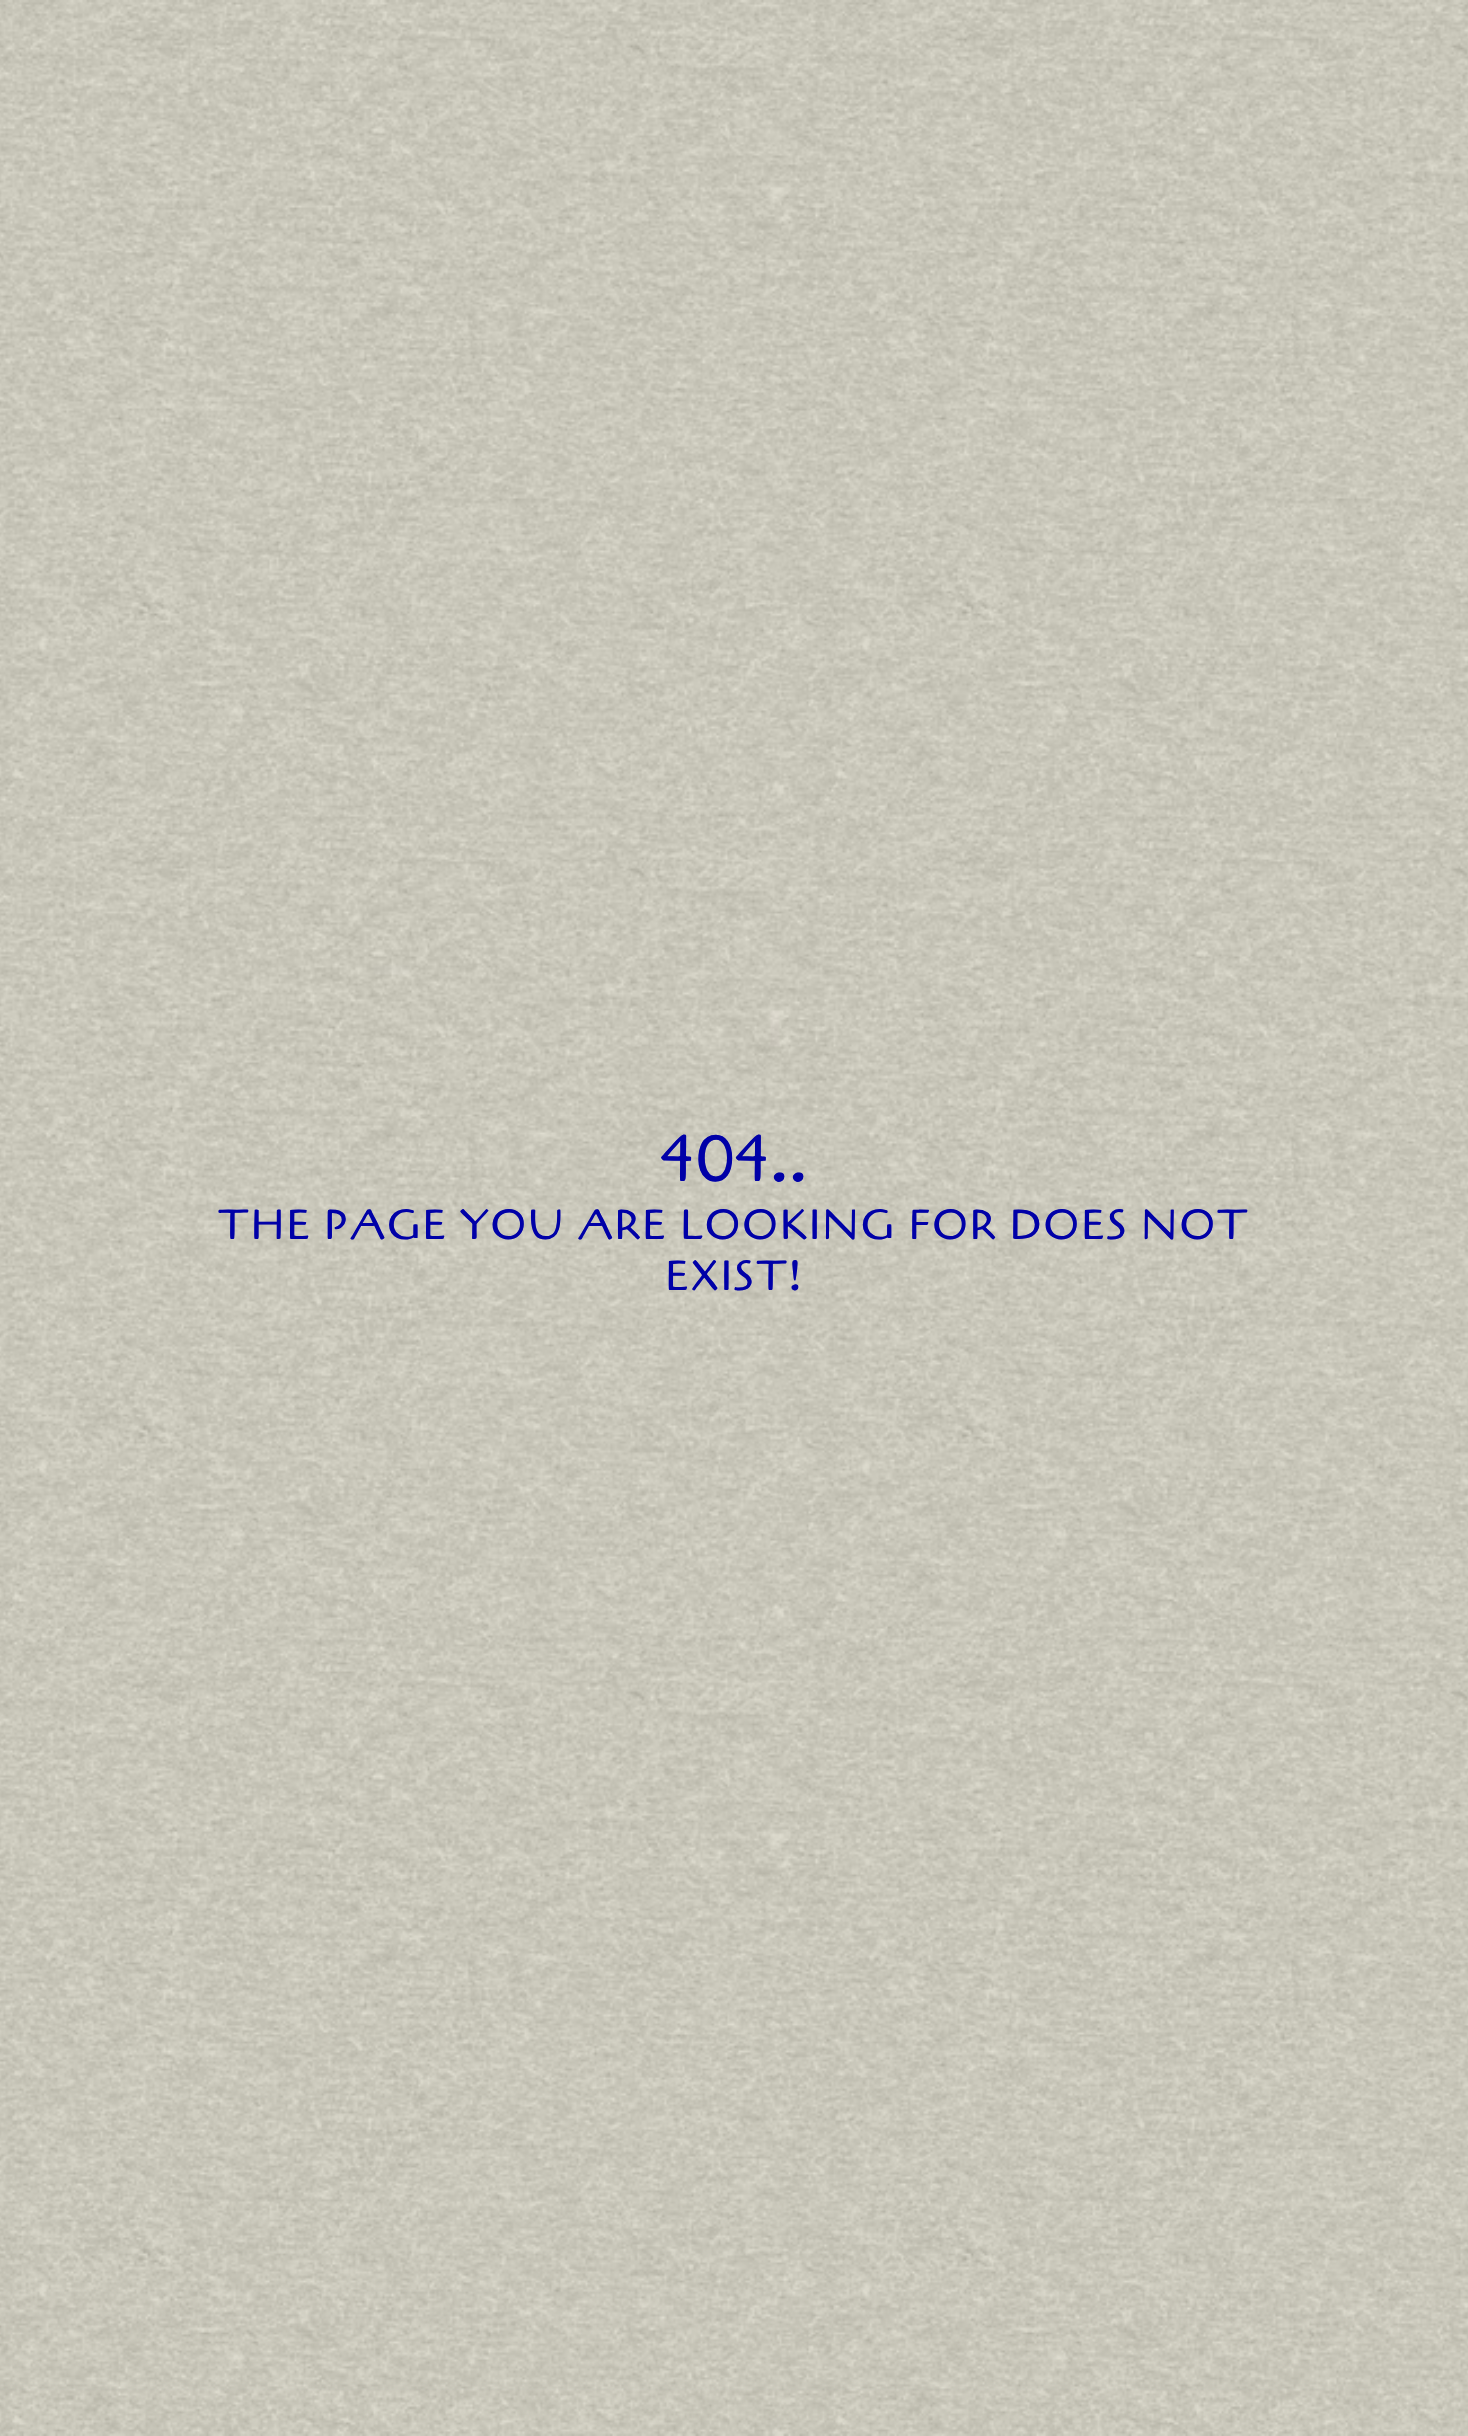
void draw(SkCanvas* canvas) {
    SkPaint paint;
    paint.setAntiAlias(true);
    auto spacedText = [&](const char* s, float x, float y, const SkFont& font, const SkPaint& ink, float letter, float word) {
        std::vector<SkGlyphID> glyphs(font.countText(s, strlen(s), SkTextEncoding::kUTF8));
        std::vector<float> xs(glyphs.size());
        font.textToGlyphs(s, strlen(s), SkTextEncoding::kUTF8, glyphs);
        font.getXPos(glyphs, xs, x);
        float extra = 0;
        for (size_t i = 0; i < glyphs.size(); i++) {
            xs[i] += extra;
            extra += letter + word * (glyphs[i] == font.unicharToGlyph(' '));
        }
        canvas->drawTextBlob(SkTextBlob::MakeFromPosHGlyphs(glyphs, xs, y, font), 0, 0, ink);
    };
    canvas->clear(0xFFFFFFFF);
    canvas->drawImageRect(SkImages::DeferredFromEncodedData(SkData::MakeFromFileName("img1.png")), SkRect::MakeXYWH(0, 0, 1468, 2436), SkSamplingOptions());
    SkFont font1(fontMgr->matchFamilyStyle("Cagliostro", SkFontStyle::Normal()), 65);
    font1.setSubpixel(true);
    paint.setColor(0xFF0000A8);
    canvas->drawString("404..", 661, 1181, font1, paint);
    SkFont font2(fontMgr->matchFamilyStyle("Cagliostro", SkFontStyle::Normal()), 42);
    font2.setSubpixel(true);
    spacedText("THE PAGE YOU ARE LOOKING FOR DOES NOT", 218, 1239, font2, paint, 1.75f, 0);
    spacedText("EXIST!", 665, 1290, font2, paint, 1.75f, 0);
}
